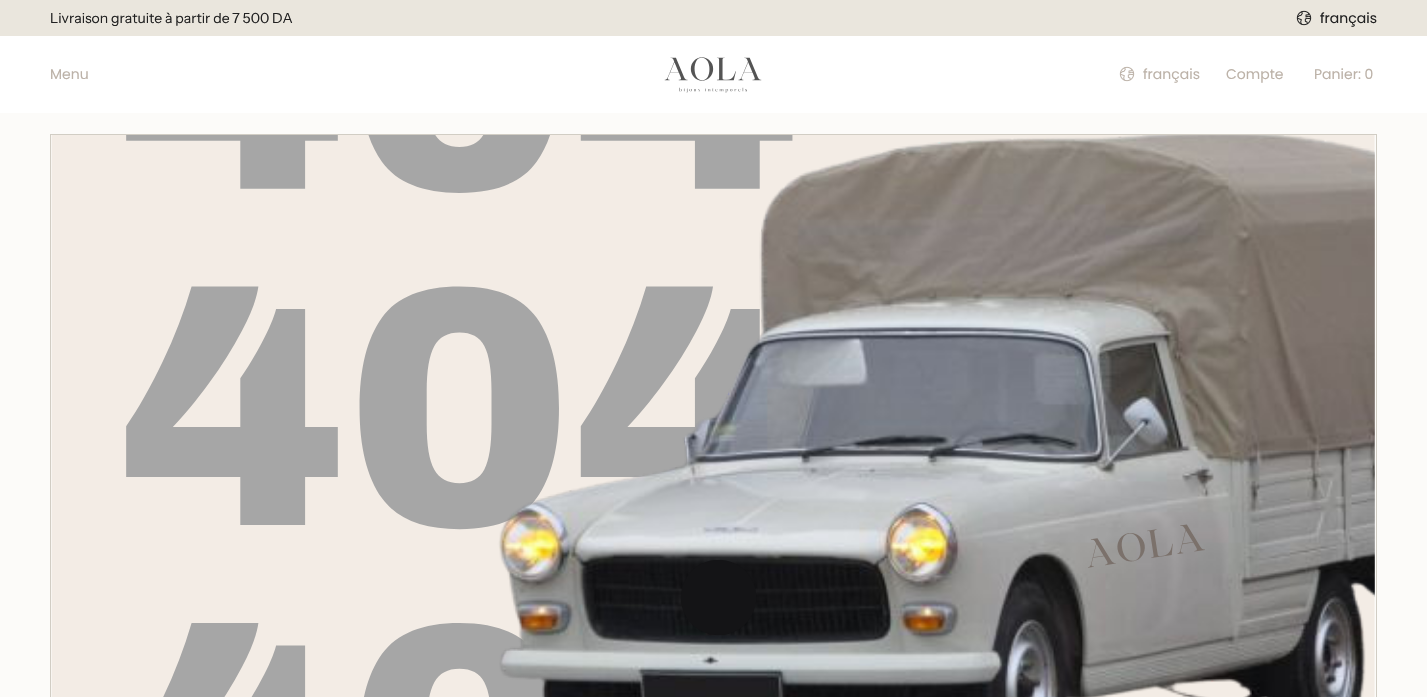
void draw(SkCanvas* canvas) {
    SkPaint paint;
    paint.setAntiAlias(true);
    canvas->clear(0xFFFCFBF9);
    paint.setColor(0xFFEAE6DD);
    canvas->drawRect(SkRect::MakeXYWH(0, 0, 1427, 36), paint);
    SkFont font1(fontMgr->matchFamilyStyle("Instrument Sans", SkFontStyle::Normal()), 14);
    font1.setSubpixel(true);
    paint.setColor(0xFF212121);
    canvas->drawString("Livraison gratuite à partir de 7 500 DA", 50, 23, font1, paint);
    canvas->drawImageRect(SkImages::DeferredFromEncodedData(SkData::MakeFromFileName("img1.png")), SkRect::MakeXYWH(1296, 10, 16, 16), SkSamplingOptions());
    SkFont font2(fontMgr->matchFamilyStyle("Poppins", SkFontStyle::Normal()), 14);
    font2.setSubpixel(true);
    canvas->drawString("français", 1320, 23, font2, paint);
    paint.setColor(0xFFFFFFFF);
    canvas->drawRect(SkRect::MakeXYWH(0, 36, 1427, 77), paint);
    paint.setColor(0xFFBCB2A8);
    canvas->drawString("Menu", 50, 79, font2, paint);
    canvas->drawImageRect(SkImages::DeferredFromEncodedData(SkData::MakeFromFileName("img2.png")), SkRect::MakeXYWH(664, 57, 98, 36), SkSamplingOptions());
    canvas->drawImageRect(SkImages::DeferredFromEncodedData(SkData::MakeFromFileName("img3.png")), SkRect::MakeXYWH(1119, 66, 16, 16), SkSamplingOptions());
    canvas->drawString("français", 1143, 79, font2, paint);
    canvas->drawString("Compte", 1226, 79, font2, paint);
    canvas->drawString("Panier: 0", 1314, 79, font2, paint);
    paint.setStyle(SkPaint::kStroke_Style);
    paint.setStrokeWidth(1);
    paint.setColor(0xFFD1CDC4);
    canvas->drawRect(SkRect::MakeXYWH(50.5f, 134.5f, 1326, 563), paint);
    canvas->drawImageRect(SkImages::DeferredFromEncodedData(SkData::MakeFromFileName("img4.png")), SkRect::MakeXYWH(51, 135, 1324, 562), SkSamplingOptions());
}
